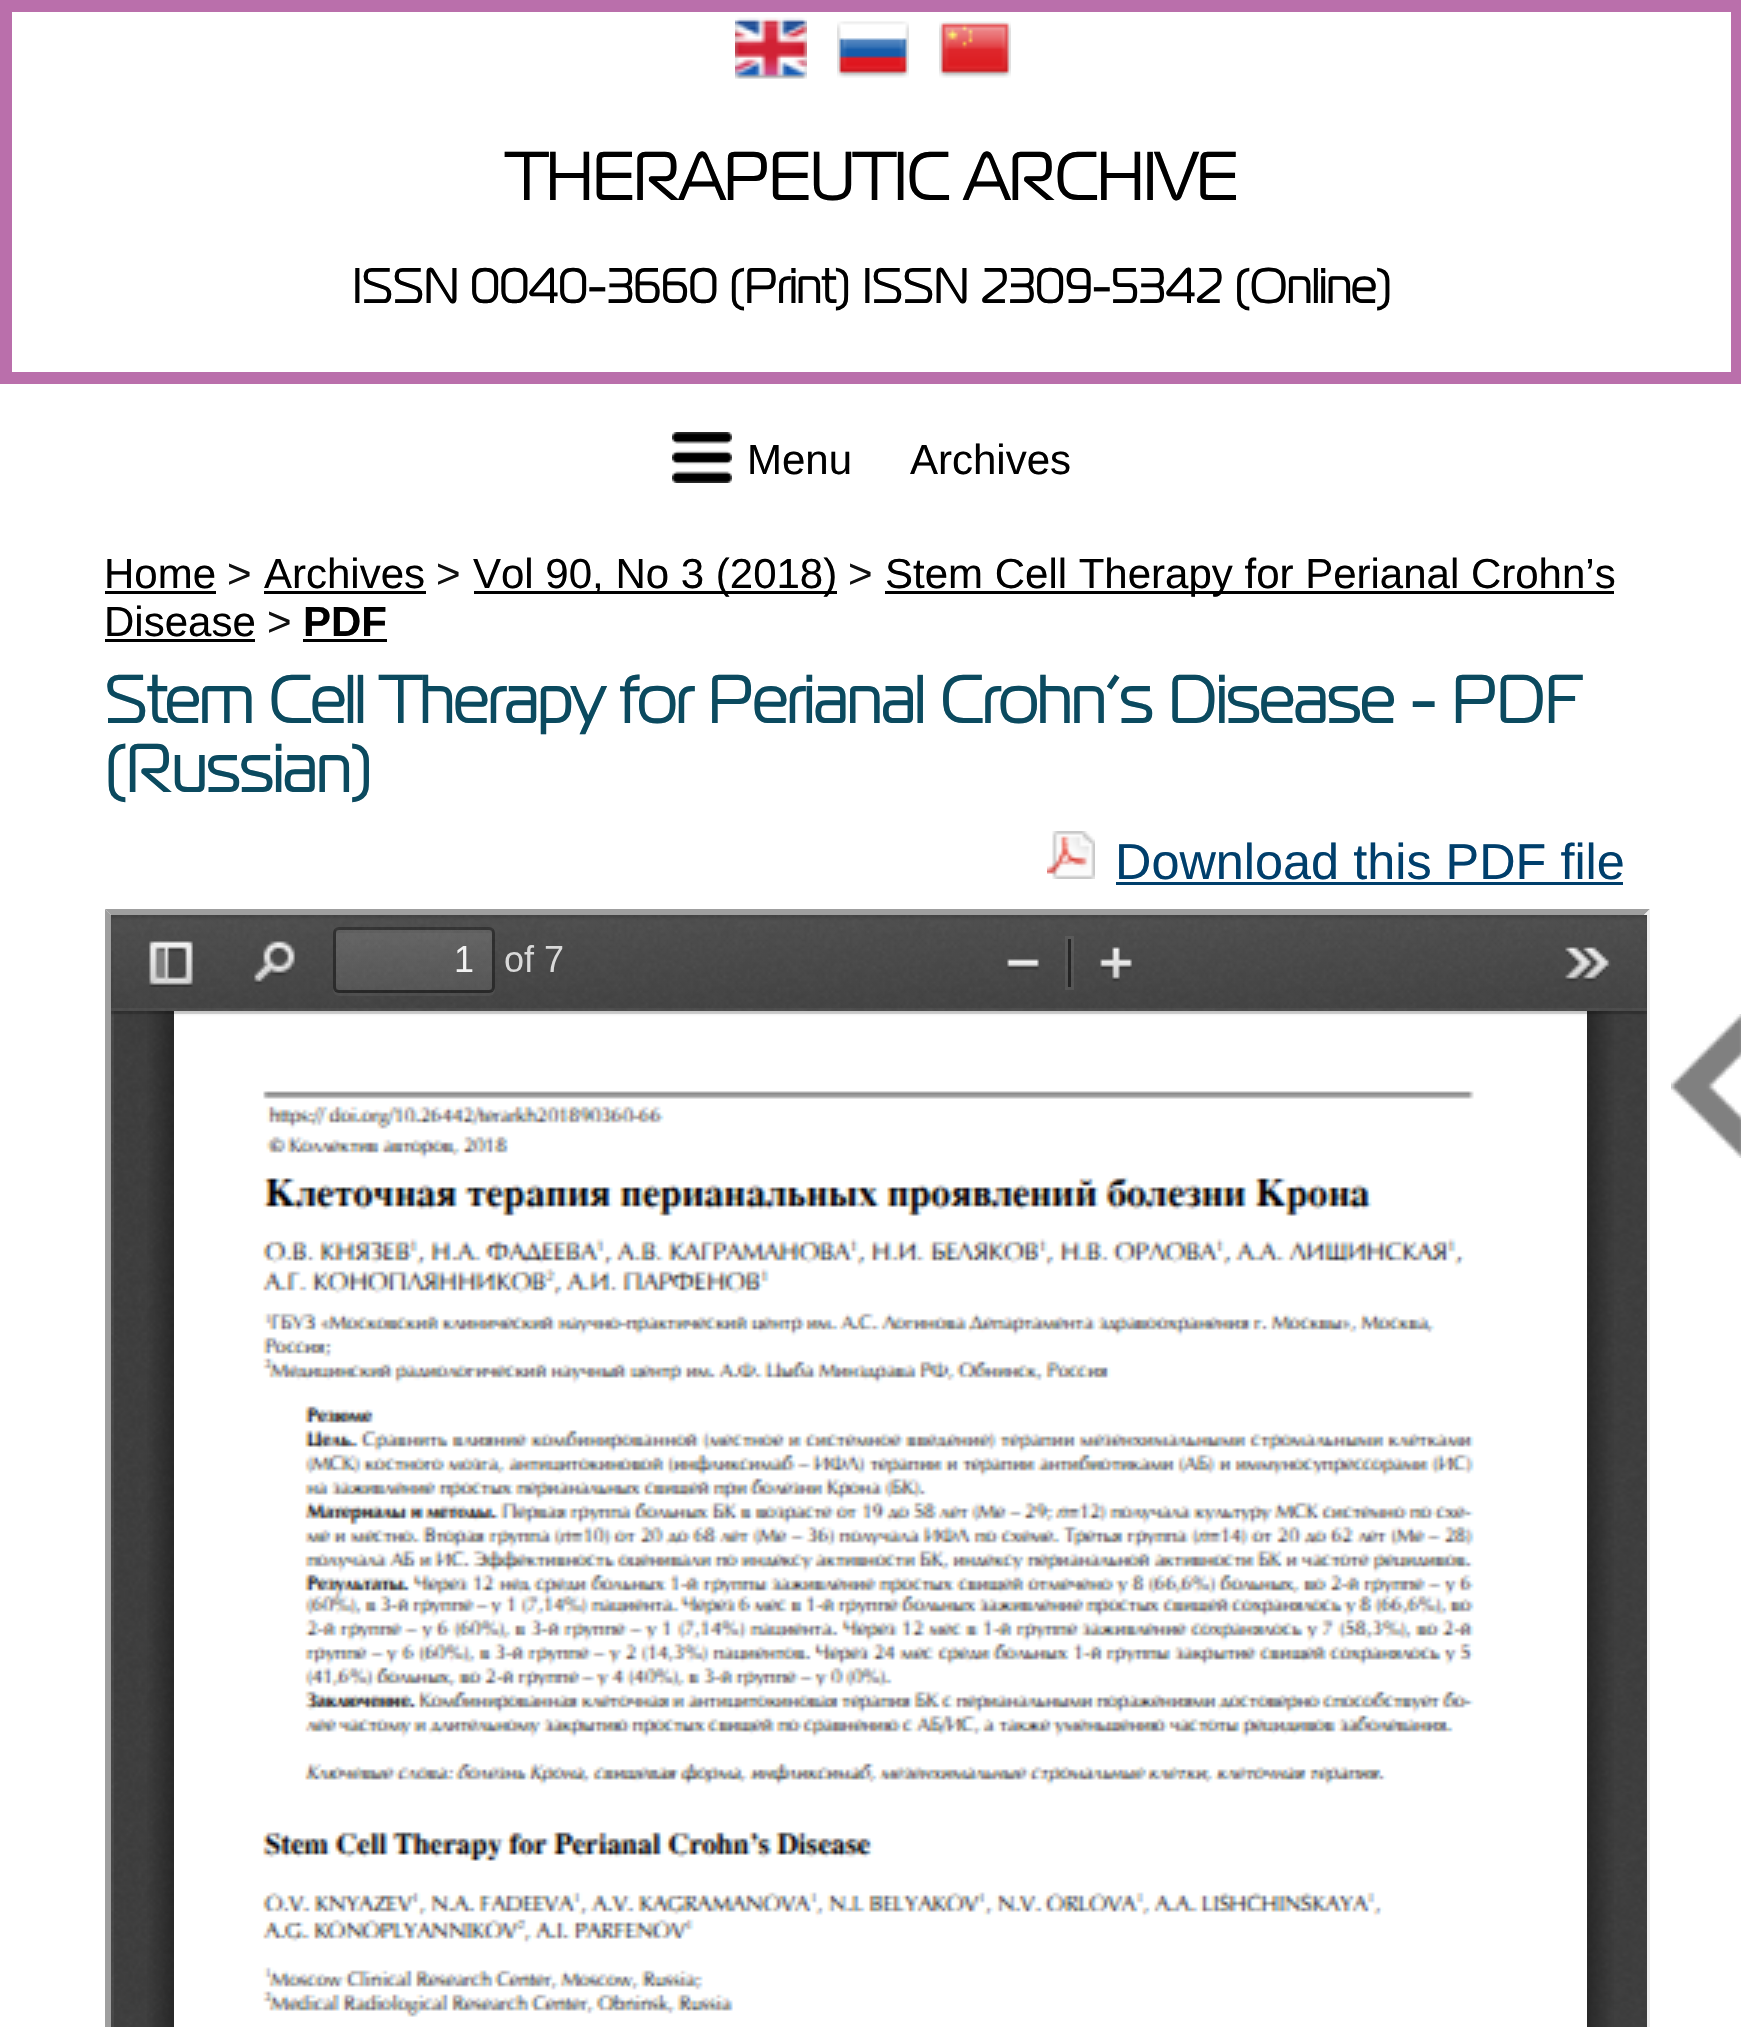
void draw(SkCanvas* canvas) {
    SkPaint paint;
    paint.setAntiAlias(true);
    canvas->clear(0xFFFFFFFF);
    paint.setStyle(SkPaint::kStroke_Style);
    paint.setStrokeWidth(12);
    paint.setColor(0xFFBA6FAB);
    canvas->drawRect(SkRect::MakeXYWH(6, 6, 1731, 372), paint);
    canvas->drawImageRect(SkImages::DeferredFromEncodedData(SkData::MakeFromFileName("img1.png")), SkRect::MakeXYWH(735, 17, 72, 62), SkSamplingOptions());
    canvas->drawImageRect(SkImages::DeferredFromEncodedData(SkData::MakeFromFileName("img2.png")), SkRect::MakeXYWH(837, 21, 72, 57), SkSamplingOptions());
    canvas->drawImageRect(SkImages::DeferredFromEncodedData(SkData::MakeFromFileName("img3.png")), SkRect::MakeXYWH(939, 21, 72, 57), SkSamplingOptions());
    SkFont font1(fontMgr->matchFamilyStyle("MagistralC", SkFontStyle::Bold()), 66);
    font1.setSubpixel(true);
    paint.setStyle(SkPaint::kFill_Style);
    paint.setColor(0xFF000000);
    canvas->drawString("THERAPEUTIC ARCHIVE", 506, 200, font1, paint);
    SkFont font2(fontMgr->matchFamilyStyle("MagistralC", SkFontStyle::Bold()), 48);
    font2.setSubpixel(true);
    canvas->drawString("ISSN 0040-3660 (Print)", 352, 303, font2, paint);
    canvas->drawString("ISSN 2309-5342 (Online)", 862, 303, font2, paint);
    canvas->drawImageRect(SkImages::DeferredFromEncodedData(SkData::MakeFromFileName("img4.png")), SkRect::MakeXYWH(672, 432, 60, 51), SkSamplingOptions());
    SkFont font3(fontMgr->matchFamilyStyle("Liberation Sans", SkFontStyle::Normal()), 42);
    font3.setSubpixel(true);
    canvas->drawString("Menu", 747, 474, font3, paint);
    canvas->drawString("Archives", 910, 474, font3, paint);
    canvas->drawString("Home", 104, 588, font3, paint);
    paint.setColor(0xFF010101);
    canvas->drawRect(SkRect::MakeXYWH(105, 591, 111, 3), paint);
    paint.setColor(0xFF111111);
    canvas->drawString(">", 227, 588, font3, paint);
    paint.setColor(0xFF000000);
    canvas->drawString("Archives", 264, 588, font3, paint);
    paint.setColor(0xFF010101);
    canvas->drawRect(SkRect::MakeXYWH(264, 591, 162, 3), paint);
    paint.setColor(0xFF111111);
    canvas->drawString(">", 436, 588, font3, paint);
    paint.setColor(0xFF010101);
    canvas->drawRect(SkRect::MakeXYWH(474, 591, 363, 3), paint);
    paint.setColor(0xFF000000);
    canvas->drawString("Vol 90, No 3 (2018)", 473, 588, font3, paint);
    paint.setColor(0xFF111111);
    canvas->drawString(">", 848, 588, font3, paint);
    paint.setColor(0xFF010101);
    canvas->drawRect(SkRect::MakeXYWH(885, 591, 729, 3), paint);
    paint.setColor(0xFF000000);
    canvas->drawString("Stem Cell Therapy for Perianal Crohn’s", 885, 588, font3, paint);
    canvas->drawString("Disease", 104, 636, font3, paint);
    paint.setColor(0xFF010101);
    canvas->drawRect(SkRect::MakeXYWH(105, 639, 150, 3), paint);
    paint.setColor(0xFF111111);
    canvas->drawString(">", 267, 636, font3, paint);
    SkFont font4(fontMgr->matchFamilyStyle("Liberation Sans", SkFontStyle::Bold()), 42);
    font4.setSubpixel(true);
    paint.setColor(0xFF000000);
    canvas->drawString("PDF", 303, 636, font4, paint);
    paint.setColor(0xFF010101);
    canvas->drawRect(SkRect::MakeXYWH(303, 639, 84, 3), paint);
    paint.setColor(0xFF0B4A5F);
    canvas->drawString("Stem Cell Therapy for Perianal Crohn’s Disease - PDF", 104, 723, font1, paint);
    canvas->drawString("(Russian)", 104, 792, font1, paint);
    canvas->drawImageRect(SkImages::DeferredFromEncodedData(SkData::MakeFromFileName("img5.png")), SkRect::MakeXYWH(1047, 831, 48, 48), SkSamplingOptions());
    SkFont font5(fontMgr->matchFamilyStyle("Liberation Sans", SkFontStyle::Normal()), 50.4f);
    font5.setSubpixel(true);
    paint.setColor(0xFF003F6C);
    canvas->drawString("Download this PDF file", 1115, 879, font5, paint);
    canvas->drawRect(SkRect::MakeXYWH(1116, 882, 507, 3), paint);
    paint.setColor(0xFF9F9F9F);
    canvas->drawPath(SkPathBuilder().moveTo(105, 909).lineTo(1650, 909).lineTo(1644, 915).lineTo(111, 915).close().detach(), paint);
    canvas->drawPath(SkPathBuilder().moveTo(105, 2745).lineTo(105, 909).lineTo(111, 915).lineTo(111, 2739).close().detach(), paint);
    paint.setColor(0xFFEEEEEE);
    canvas->drawPath(SkPathBuilder().moveTo(1650, 909).lineTo(1650, 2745).lineTo(1644, 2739).lineTo(1644, 915).close().detach(), paint);
    canvas->drawImageRect(SkImages::DeferredFromEncodedData(SkData::MakeFromFileName("img6.png")), SkRect::MakeXYWH(111, 915, 1536, 1112), SkSamplingOptions());
    canvas->drawImageRect(SkImages::DeferredFromEncodedData(SkData::MakeFromFileName("img7.png")), SkRect::MakeXYWH(1671, 1014, 70, 144), SkSamplingOptions());
}
